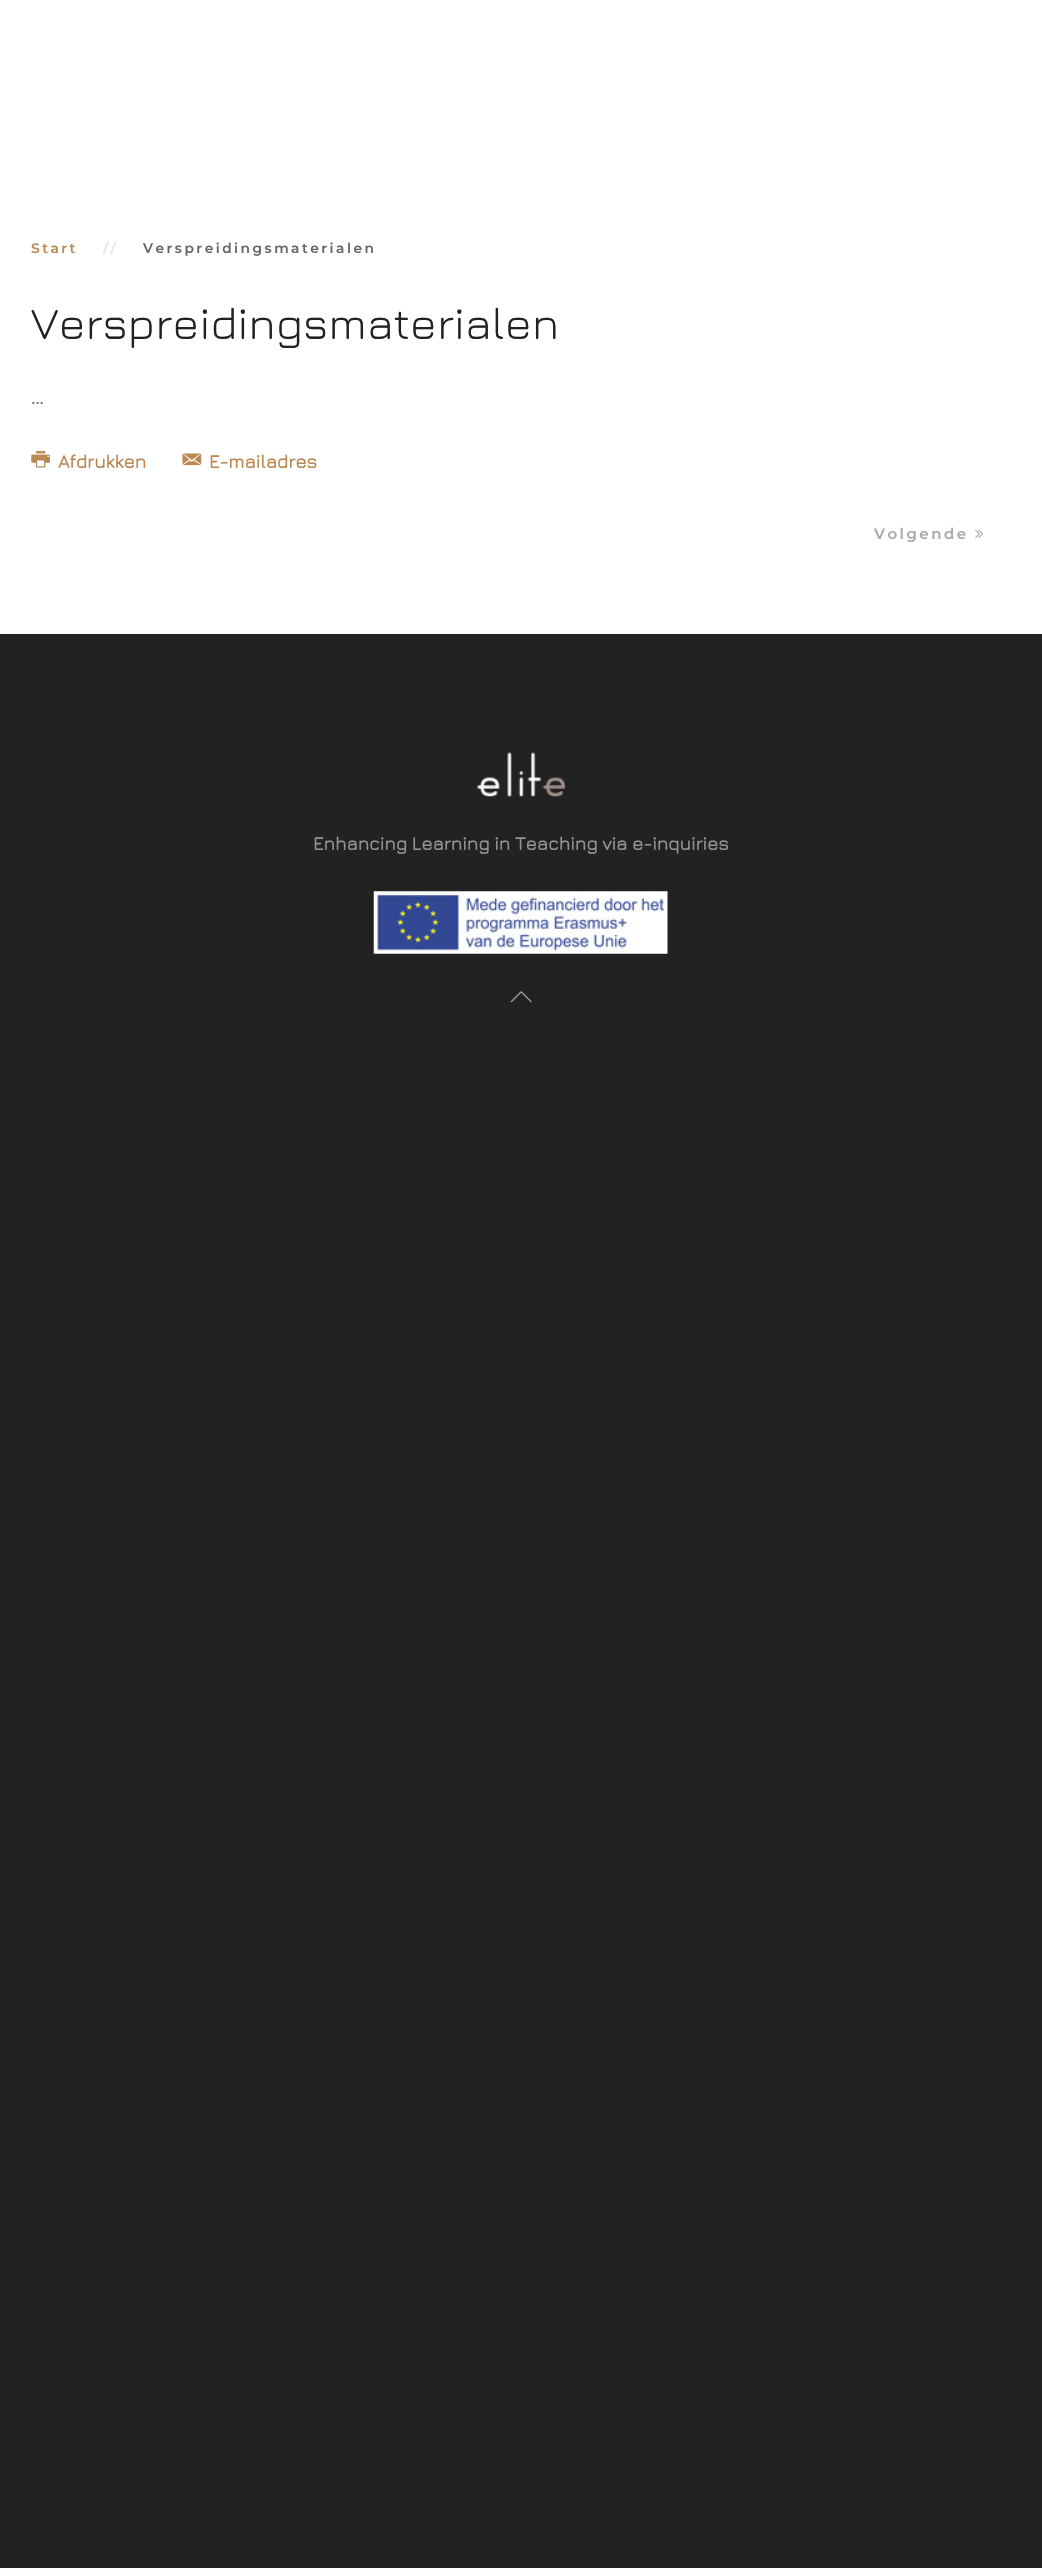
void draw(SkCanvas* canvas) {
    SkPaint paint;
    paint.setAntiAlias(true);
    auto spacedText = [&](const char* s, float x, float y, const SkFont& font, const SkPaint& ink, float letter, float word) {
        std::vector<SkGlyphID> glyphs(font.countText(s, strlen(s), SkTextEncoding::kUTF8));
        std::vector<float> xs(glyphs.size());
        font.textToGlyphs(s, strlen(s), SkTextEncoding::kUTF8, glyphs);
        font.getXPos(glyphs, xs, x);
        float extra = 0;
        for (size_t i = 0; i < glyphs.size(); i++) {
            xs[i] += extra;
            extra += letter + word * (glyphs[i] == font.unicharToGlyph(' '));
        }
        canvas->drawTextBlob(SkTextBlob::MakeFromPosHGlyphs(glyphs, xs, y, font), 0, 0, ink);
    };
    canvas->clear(0xFF222222);
    paint.setColor(0xFFFFFFFF);
    canvas->drawRect(SkRect::MakeXYWH(0, 0, 1042, 634), paint);
    SkFont font1(fontMgr->matchFamilyStyle("Montserrat", SkFontStyle(600, SkFontStyle::kNormal_Width, SkFontStyle::kUpright_Slant)), 13.75f);
    font1.setSubpixel(true);
    paint.setColor(0xFFBC8854);
    spacedText("Start", 31, 253, font1, paint, 2.5f, 0);
    paint.setColor(0xFFE6E6E6);
    spacedText("//", 103, 253, font1, paint, 2.5f, 0);
    paint.setColor(0xFF666666);
    spacedText("Verspreidingsmaterialen", 143, 253, font1, paint, 2.5f, 0);
    SkFont font2(fontMgr->matchFamilyStyle("Jura", SkFontStyle(300, SkFontStyle::kNormal_Width, SkFontStyle::kUpright_Slant)), 45);
    font2.setSubpixel(true);
    paint.setColor(0xFF222222);
    canvas->drawString("Verspreidingsmaterialen", 31, 339, font2, paint);
    SkFont font3(fontMgr->matchFamilyStyle("Jura", SkFontStyle::Bold()), 18.75f);
    font3.setSubpixel(true);
    paint.setColor(0xFF666666);
    canvas->drawString("...", 31, 404, font3, paint);
    canvas->drawImageRect(SkImages::DeferredFromEncodedData(SkData::MakeFromFileName("img1.png")), SkRect::MakeXYWH(31, 451, 19, 17), SkSamplingOptions());
    paint.setColor(0xFFBC8854);
    canvas->drawString("Afdrukken", 58, 468, font3, paint);
    canvas->drawImageRect(SkImages::DeferredFromEncodedData(SkData::MakeFromFileName("img2.png")), SkRect::MakeXYWH(182, 453, 20, 13), SkSamplingOptions());
    canvas->drawString("E-mailadres", 209, 468, font3, paint);
    SkFont font4(fontMgr->matchFamilyStyle("Montserrat", SkFontStyle(600, SkFontStyle::kNormal_Width, SkFontStyle::kUpright_Slant)), 15);
    font4.setSubpixel(true);
    paint.setColor(0xFFAAAAAA);
    spacedText("Volgende", 874, 539, font4, paint, 2.5f, 0);
    canvas->drawImageRect(SkImages::DeferredFromEncodedData(SkData::MakeFromFileName("img3.png")), SkRect::MakeXYWH(975, 529, 8, 9), SkSamplingOptions());
    canvas->drawImageRect(SkImages::DeferredFromEncodedData(SkData::MakeFromFileName("img4.png")), SkRect::MakeXYWH(477, 752, 88, 45), SkSamplingOptions());
    paint.setColor(0xFF919191);
    canvas->drawString("Enhancing Learning in Teaching via e-inquiries", 313, 850, font3, paint);
    canvas->drawImageRect(SkImages::DeferredFromEncodedData(SkData::MakeFromFileName("img5.png")), SkRect::MakeXYWH(373, 891, 295, 63), SkSamplingOptions());
    canvas->drawImageRect(SkImages::DeferredFromEncodedData(SkData::MakeFromFileName("img6.png")), SkRect::MakeXYWH(510, 991, 22, 12), SkSamplingOptions());
}
